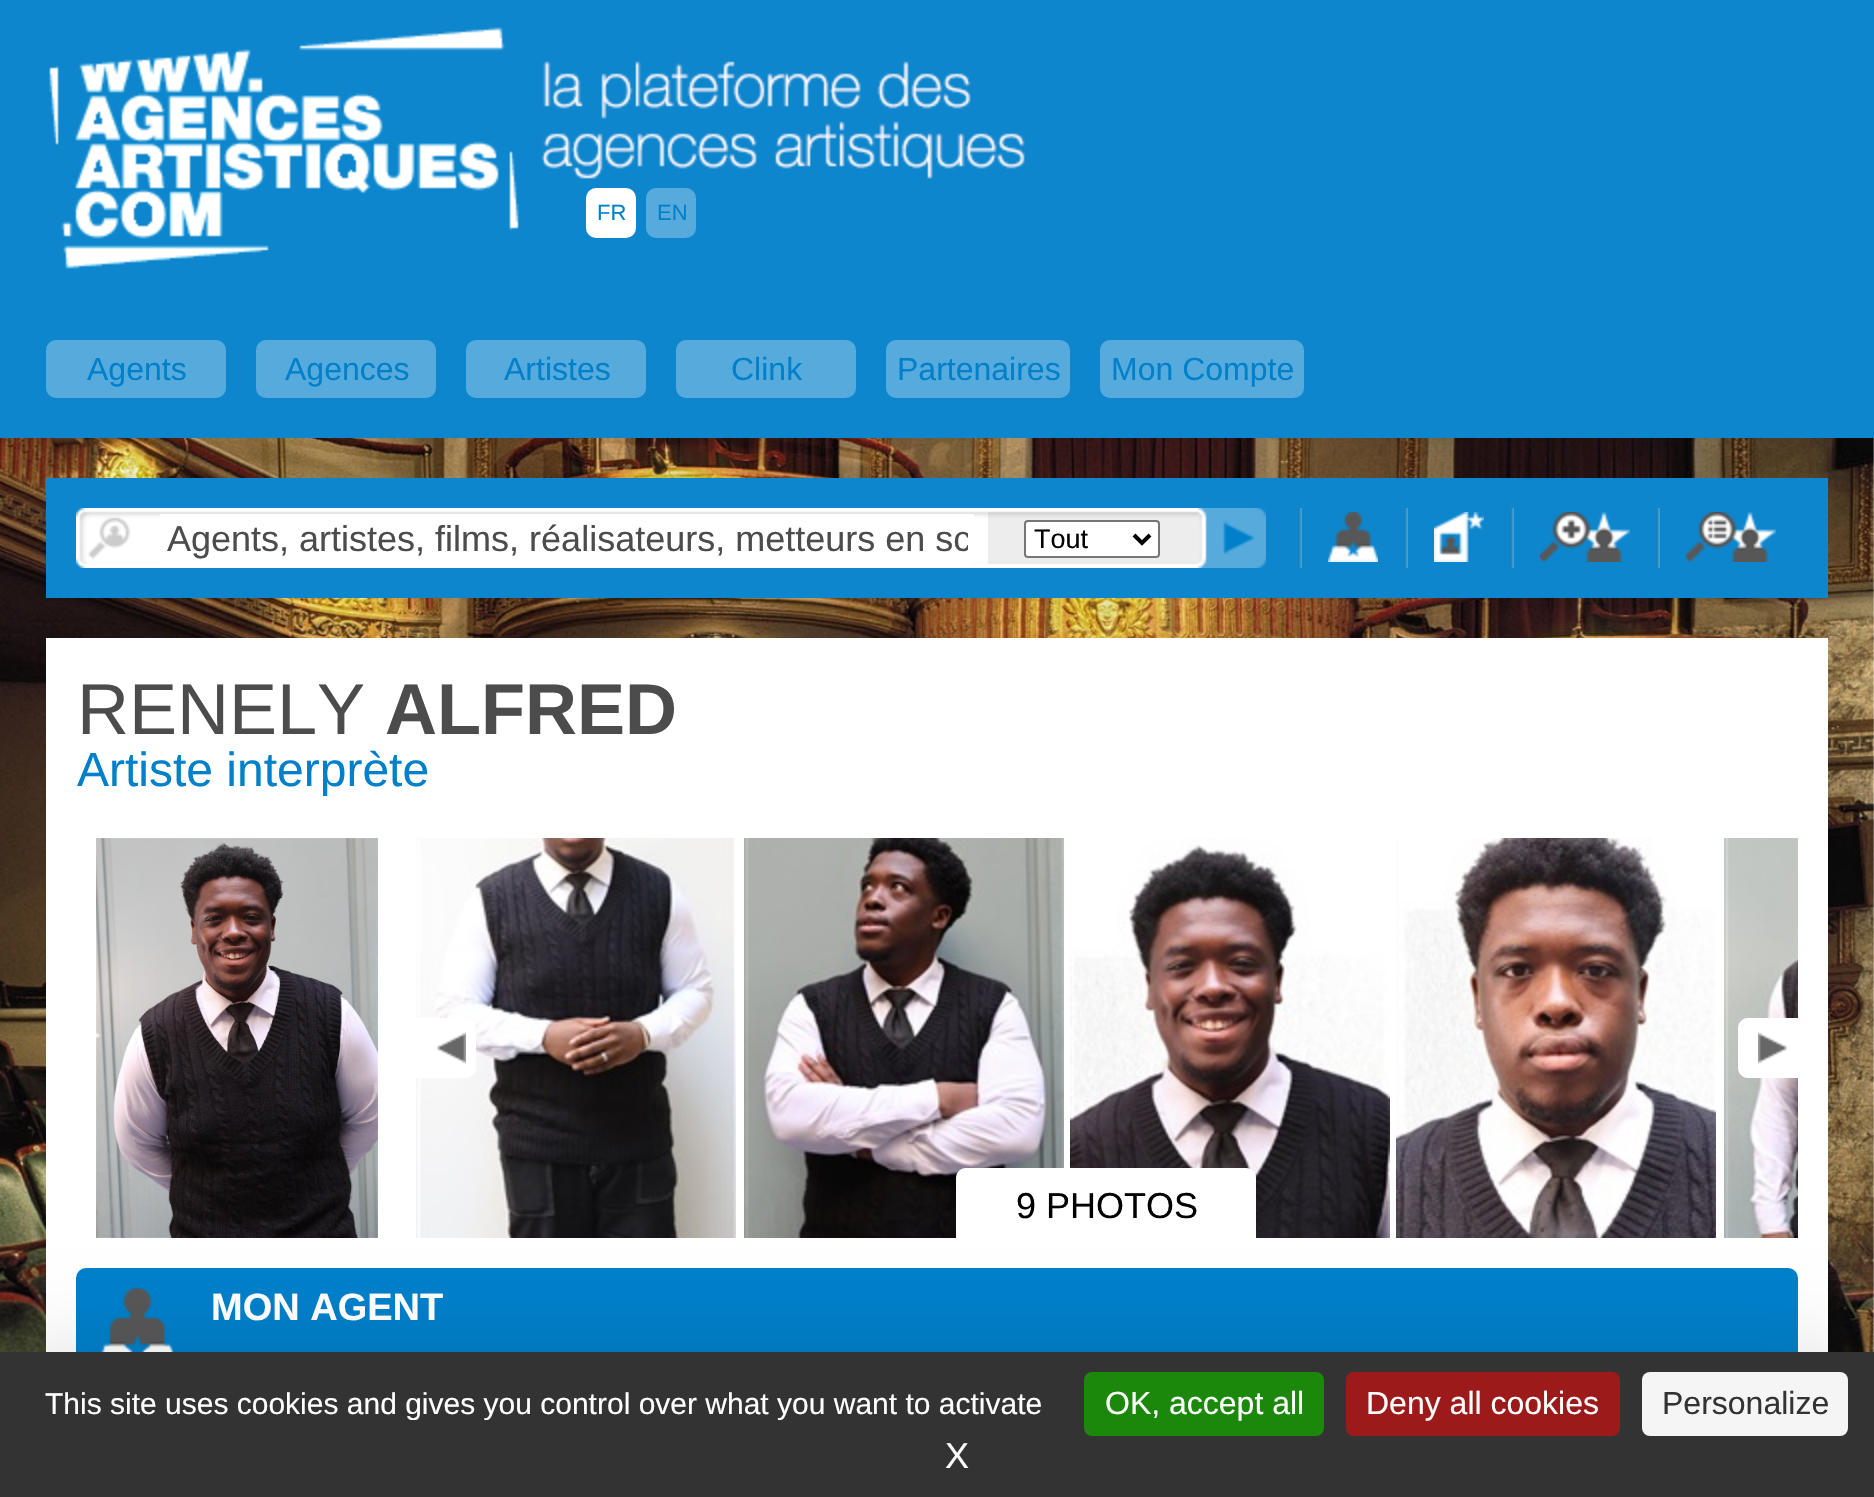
void draw(SkCanvas* canvas) {
    SkPaint paint;
    paint.setAntiAlias(true);
    canvas->clear(0xFFFFFFFF);
    canvas->drawImageRect(SkImages::DeferredFromEncodedData(SkData::MakeFromFileName("img1.png")), SkRect::MakeXYWH(0, 438, 1874, 914), SkSamplingOptions());
    paint.setColor(0xFF0D86CD);
    canvas->drawRect(SkRect::MakeXYWH(0, 0, 1874, 438), paint);
    canvas->drawImageRect(SkImages::DeferredFromEncodedData(SkData::MakeFromFileName("img2.png")), SkRect::MakeXYWH(46, 0, 996, 300), SkSamplingOptions());
    paint.setColor(0xFFFFFFFF);
    canvas->drawRoundRect(SkRect::MakeXYWH(586, 188, 50, 50), 10, 10, paint);
    SkFont font1(fontMgr->matchFamilyStyle("Liberation Sans", SkFontStyle::Normal()), 22);
    font1.setSubpixel(true);
    paint.setColor(0xFF0080CA);
    canvas->drawString("FR", 597, 220, font1, paint);
    canvas->drawImageRect(SkImages::DeferredFromEncodedData(SkData::MakeFromFileName("img3.png")), SkRect::MakeXYWH(646, 188, 50, 50), SkSamplingOptions());
    canvas->drawString("EN", 657, 220, font1, paint);
    canvas->drawImageRect(SkImages::DeferredFromEncodedData(SkData::MakeFromFileName("img4.png")), SkRect::MakeXYWH(46, 340, 180, 58), SkSamplingOptions());
    SkFont font2(fontMgr->matchFamilyStyle("Liberation Sans", SkFontStyle::Normal()), 32);
    font2.setSubpixel(true);
    canvas->drawString("Agents", 87, 380, font2, paint);
    canvas->drawImageRect(SkImages::DeferredFromEncodedData(SkData::MakeFromFileName("img5.png")), SkRect::MakeXYWH(256, 340, 180, 58), SkSamplingOptions());
    canvas->drawString("Agences", 285, 380, font2, paint);
    canvas->drawImageRect(SkImages::DeferredFromEncodedData(SkData::MakeFromFileName("img5.png")), SkRect::MakeXYWH(466, 340, 180, 58), SkSamplingOptions());
    canvas->drawString("Artistes", 504, 380, font2, paint);
    canvas->drawImageRect(SkImages::DeferredFromEncodedData(SkData::MakeFromFileName("img4.png")), SkRect::MakeXYWH(676, 340, 180, 58), SkSamplingOptions());
    canvas->drawString("Clink", 731, 380, font2, paint);
    canvas->drawImageRect(SkImages::DeferredFromEncodedData(SkData::MakeFromFileName("img6.png")), SkRect::MakeXYWH(886, 340, 184, 58), SkSamplingOptions());
    canvas->drawString("Partenaires", 897, 380, font2, paint);
    canvas->drawImageRect(SkImages::DeferredFromEncodedData(SkData::MakeFromFileName("img7.png")), SkRect::MakeXYWH(1100, 340, 204, 58), SkSamplingOptions());
    canvas->drawString("Mon Compte", 1111, 380, font2, paint);
    paint.setColor(0xFF0D86CD);
    canvas->drawRect(SkRect::MakeXYWH(46, 478, 1782, 120), paint);
    canvas->drawImageRect(SkImages::DeferredFromEncodedData(SkData::MakeFromFileName("img8.png")), SkRect::MakeXYWH(76, 508, 70, 60), SkSamplingOptions());
    canvas->drawImageRect(SkImages::DeferredFromEncodedData(SkData::MakeFromFileName("img9.png")), SkRect::MakeXYWH(146, 508, 842, 60), SkSamplingOptions());
    paint.setColor(0xFFFFFFFF);
    canvas->drawRect(SkRect::MakeXYWH(160, 514, 814, 50), paint);
    canvas->save();
    canvas->clipRect(SkRect::MakeXYWH(166, 520, 802, 42));
    SkFont font3(fontMgr->matchFamilyStyle("Liberation Sans", SkFontStyle::Normal()), 36);
    font3.setSubpixel(true);
    paint.setColor(0xFF4C4C4C);
    canvas->drawString("Agents, artistes, films, réalisateurs, metteurs en sc", 167, 551, font3, paint);
    canvas->restore();
    canvas->drawImageRect(SkImages::DeferredFromEncodedData(SkData::MakeFromFileName("img10.png")), SkRect::MakeXYWH(988, 508, 210, 60), SkSamplingOptions());
    paint.setColor(0xFFFFFFFF);
    canvas->drawRoundRect(SkRect::MakeXYWH(1025, 521, 134, 36), 3, 3, paint);
    paint.setStyle(SkPaint::kStroke_Style);
    paint.setStrokeWidth(2);
    paint.setColor(0xFF767676);
    canvas->drawRoundRect(SkRect::MakeXYWH(1025, 521, 134, 36), 3, 3, paint);
    paint.setStrokeWidth(4);
    paint.setColor(0xFF000000);
    canvas->drawPath(SkPathBuilder().moveTo(1134, 535).lineTo(1142, 543).lineTo(1150, 535).detach(), paint);
    SkFont font4(fontMgr->matchFamilyStyle("Liberation Sans", SkFontStyle::Normal()), 27);
    font4.setSubpixel(true);
    paint.setStyle(SkPaint::kFill_Style);
    canvas->drawString("Tout", 1034, 548, font4, paint);
    canvas->drawImageRect(SkImages::DeferredFromEncodedData(SkData::MakeFromFileName("img11.png")), SkRect::MakeXYWH(1198, 508, 68, 60), SkSamplingOptions());
    canvas->drawImageRect(SkImages::DeferredFromEncodedData(SkData::MakeFromFileName("img12.png")), SkRect::MakeXYWH(1298, 508, 4, 60), SkSamplingOptions());
    canvas->drawImageRect(SkImages::DeferredFromEncodedData(SkData::MakeFromFileName("img13.png")), SkRect::MakeXYWH(1328, 512, 50, 50), SkSamplingOptions());
    canvas->drawImageRect(SkImages::DeferredFromEncodedData(SkData::MakeFromFileName("img12.png")), SkRect::MakeXYWH(1404, 508, 4, 60), SkSamplingOptions());
    canvas->drawImageRect(SkImages::DeferredFromEncodedData(SkData::MakeFromFileName("img14.png")), SkRect::MakeXYWH(1434, 512, 50, 50), SkSamplingOptions());
    canvas->drawImageRect(SkImages::DeferredFromEncodedData(SkData::MakeFromFileName("img12.png")), SkRect::MakeXYWH(1510, 508, 4, 60), SkSamplingOptions());
    canvas->drawImageRect(SkImages::DeferredFromEncodedData(SkData::MakeFromFileName("img15.png")), SkRect::MakeXYWH(1540, 512, 90, 50), SkSamplingOptions());
    canvas->drawImageRect(SkImages::DeferredFromEncodedData(SkData::MakeFromFileName("img12.png")), SkRect::MakeXYWH(1656, 508, 4, 60), SkSamplingOptions());
    canvas->drawImageRect(SkImages::DeferredFromEncodedData(SkData::MakeFromFileName("img16.png")), SkRect::MakeXYWH(1686, 512, 90, 50), SkSamplingOptions());
    paint.setColor(0xFFFFFFFF);
    canvas->drawRect(SkRect::MakeXYWH(46, 638, 1782, 714), paint);
    SkFont font5(fontMgr->matchFamilyStyle("Liberation Sans", SkFontStyle::Normal()), 72);
    font5.setSubpixel(true);
    paint.setColor(0xFF4C4C4C);
    canvas->drawString("RENELY", 77, 734, font5, paint);
    SkFont font6(fontMgr->matchFamilyStyle("Liberation Sans", SkFontStyle::Bold()), 72);
    font6.setSubpixel(true);
    canvas->drawString("ALFRED", 385, 734, font6, paint);
    SkFont font7(fontMgr->matchFamilyStyle("Liberation Sans", SkFontStyle::Normal()), 48);
    font7.setSubpixel(true);
    paint.setColor(0xFF0080CA);
    canvas->drawString("Artiste interprète", 77, 786, font7, paint);
    canvas->drawImageRect(SkImages::DeferredFromEncodedData(SkData::MakeFromFileName("img17.png")), SkRect::MakeXYWH(96, 838, 282, 400), SkSamplingOptions());
    canvas->drawImageRect(SkImages::DeferredFromEncodedData(SkData::MakeFromFileName("img18.png")), SkRect::MakeXYWH(416, 838, 320, 400), SkSamplingOptions());
    canvas->drawImageRect(SkImages::DeferredFromEncodedData(SkData::MakeFromFileName("img19.png")), SkRect::MakeXYWH(744, 838, 320, 400), SkSamplingOptions());
    canvas->drawImageRect(SkImages::DeferredFromEncodedData(SkData::MakeFromFileName("img20.png")), SkRect::MakeXYWH(1070, 838, 320, 400), SkSamplingOptions());
    canvas->drawImageRect(SkImages::DeferredFromEncodedData(SkData::MakeFromFileName("img21.png")), SkRect::MakeXYWH(1396, 838, 320, 400), SkSamplingOptions());
    canvas->drawImageRect(SkImages::DeferredFromEncodedData(SkData::MakeFromFileName("img22.png")), SkRect::MakeXYWH(1724, 838, 74, 400), SkSamplingOptions());
    paint.setColor(0xFFFFFFFF);
    canvas->drawPath(SkPathBuilder().moveTo(416, 1018).lineTo(466, 1018).cubicTo(471.5f, 1018, 476, 1022.5f, 476, 1028).lineTo(476, 1068).cubicTo(476, 1073.5f, 471.5f, 1078, 466, 1078).lineTo(416, 1078).close().detach(), paint);
    canvas->drawImageRect(SkImages::DeferredFromEncodedData(SkData::MakeFromFileName("img23.png")), SkRect::MakeXYWH(436, 1032, 30, 32), SkSamplingOptions());
    canvas->drawPath(SkPathBuilder().moveTo(1748, 1018).lineTo(1798, 1018).lineTo(1798, 1078).lineTo(1748, 1078).cubicTo(1742.5f, 1078, 1738, 1073.5f, 1738, 1068).lineTo(1738, 1028).cubicTo(1738, 1022.5f, 1742.5f, 1018, 1748, 1018).close().detach(), paint);
    canvas->drawImageRect(SkImages::DeferredFromEncodedData(SkData::MakeFromFileName("img24.png")), SkRect::MakeXYWH(1758, 1032, 30, 32), SkSamplingOptions());
    canvas->drawPath(SkPathBuilder().moveTo(966, 1168).lineTo(1246, 1168).cubicTo(1251.5f, 1168, 1256, 1172.5f, 1256, 1178).lineTo(1256, 1238).lineTo(956, 1238).lineTo(956, 1178).cubicTo(956, 1172.5f, 960.5f, 1168, 966, 1168).close().detach(), paint);
    paint.setColor(0xFF000000);
    canvas->drawString("9 PHOTOS", 1016, 1218, font3, paint);
    paint.setColor(0xFF0080CA);
    canvas->drawRoundRect(SkRect::MakeXYWH(76, 1268, 1722, 222), 10, 10, paint);
    canvas->drawImageRect(SkImages::DeferredFromEncodedData(SkData::MakeFromFileName("img25.png")), SkRect::MakeXYWH(101, 1288, 73, 64), SkSamplingOptions());
    SkFont font8(fontMgr->matchFamilyStyle("Liberation Sans", SkFontStyle::Bold()), 38);
    font8.setSubpixel(true);
    paint.setColor(0xFFFFFFFF);
    canvas->drawString("MON AGENT", 211, 1320, font8, paint);
    paint.setColor(0x40000000);
    paint.setMaskFilter(SkMaskFilter::MakeBlur(kNormal_SkBlurStyle, 60));
    canvas->drawRect(SkRect::MakeXYWH(0, 1392, 1874, 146), paint);
    paint.setMaskFilter(nullptr);
    paint.setColor(0xFF333333);
    canvas->drawRect(SkRect::MakeXYWH(0, 1352, 1874, 145), paint);
    canvas->save();
    canvas->clipRect(SkRect::MakeXYWH(26, 1386, 1036, 34));
    SkFont font9(fontMgr->matchFamilyStyle("Liberation Sans", SkFontStyle::Normal()), 30);
    font9.setSubpixel(true);
    paint.setColor(0xFFFFFFFF);
    canvas->drawString("This site uses cookies and gives you control over what you want to activate", 45, 1414, font9, paint);
    canvas->restore();
    paint.setColor(0xFF1B870B);
    canvas->drawRoundRect(SkRect::MakeXYWH(1084, 1372, 240, 64), 8, 8, paint);
    paint.setColor(0xFFFFFFFF);
    canvas->drawString("OK, accept all", 1105, 1414, font2, paint);
    paint.setColor(0xFF9C1A1A);
    canvas->drawRoundRect(SkRect::MakeXYWH(1346, 1372, 274, 64), 8, 8, paint);
    paint.setColor(0xFFFFFFFF);
    canvas->drawString("Deny all cookies", 1366, 1414, font2, paint);
    paint.setColor(0xFFF5F5F5);
    canvas->drawRoundRect(SkRect::MakeXYWH(1642, 1372, 206, 64), 8, 8, paint);
    paint.setColor(0xFF333333);
    canvas->drawString("Personalize", 1662, 1414, font2, paint);
    paint.setColor(0xFFFFFFFF);
    canvas->drawString("X", 945, 1468, font3, paint);
}
